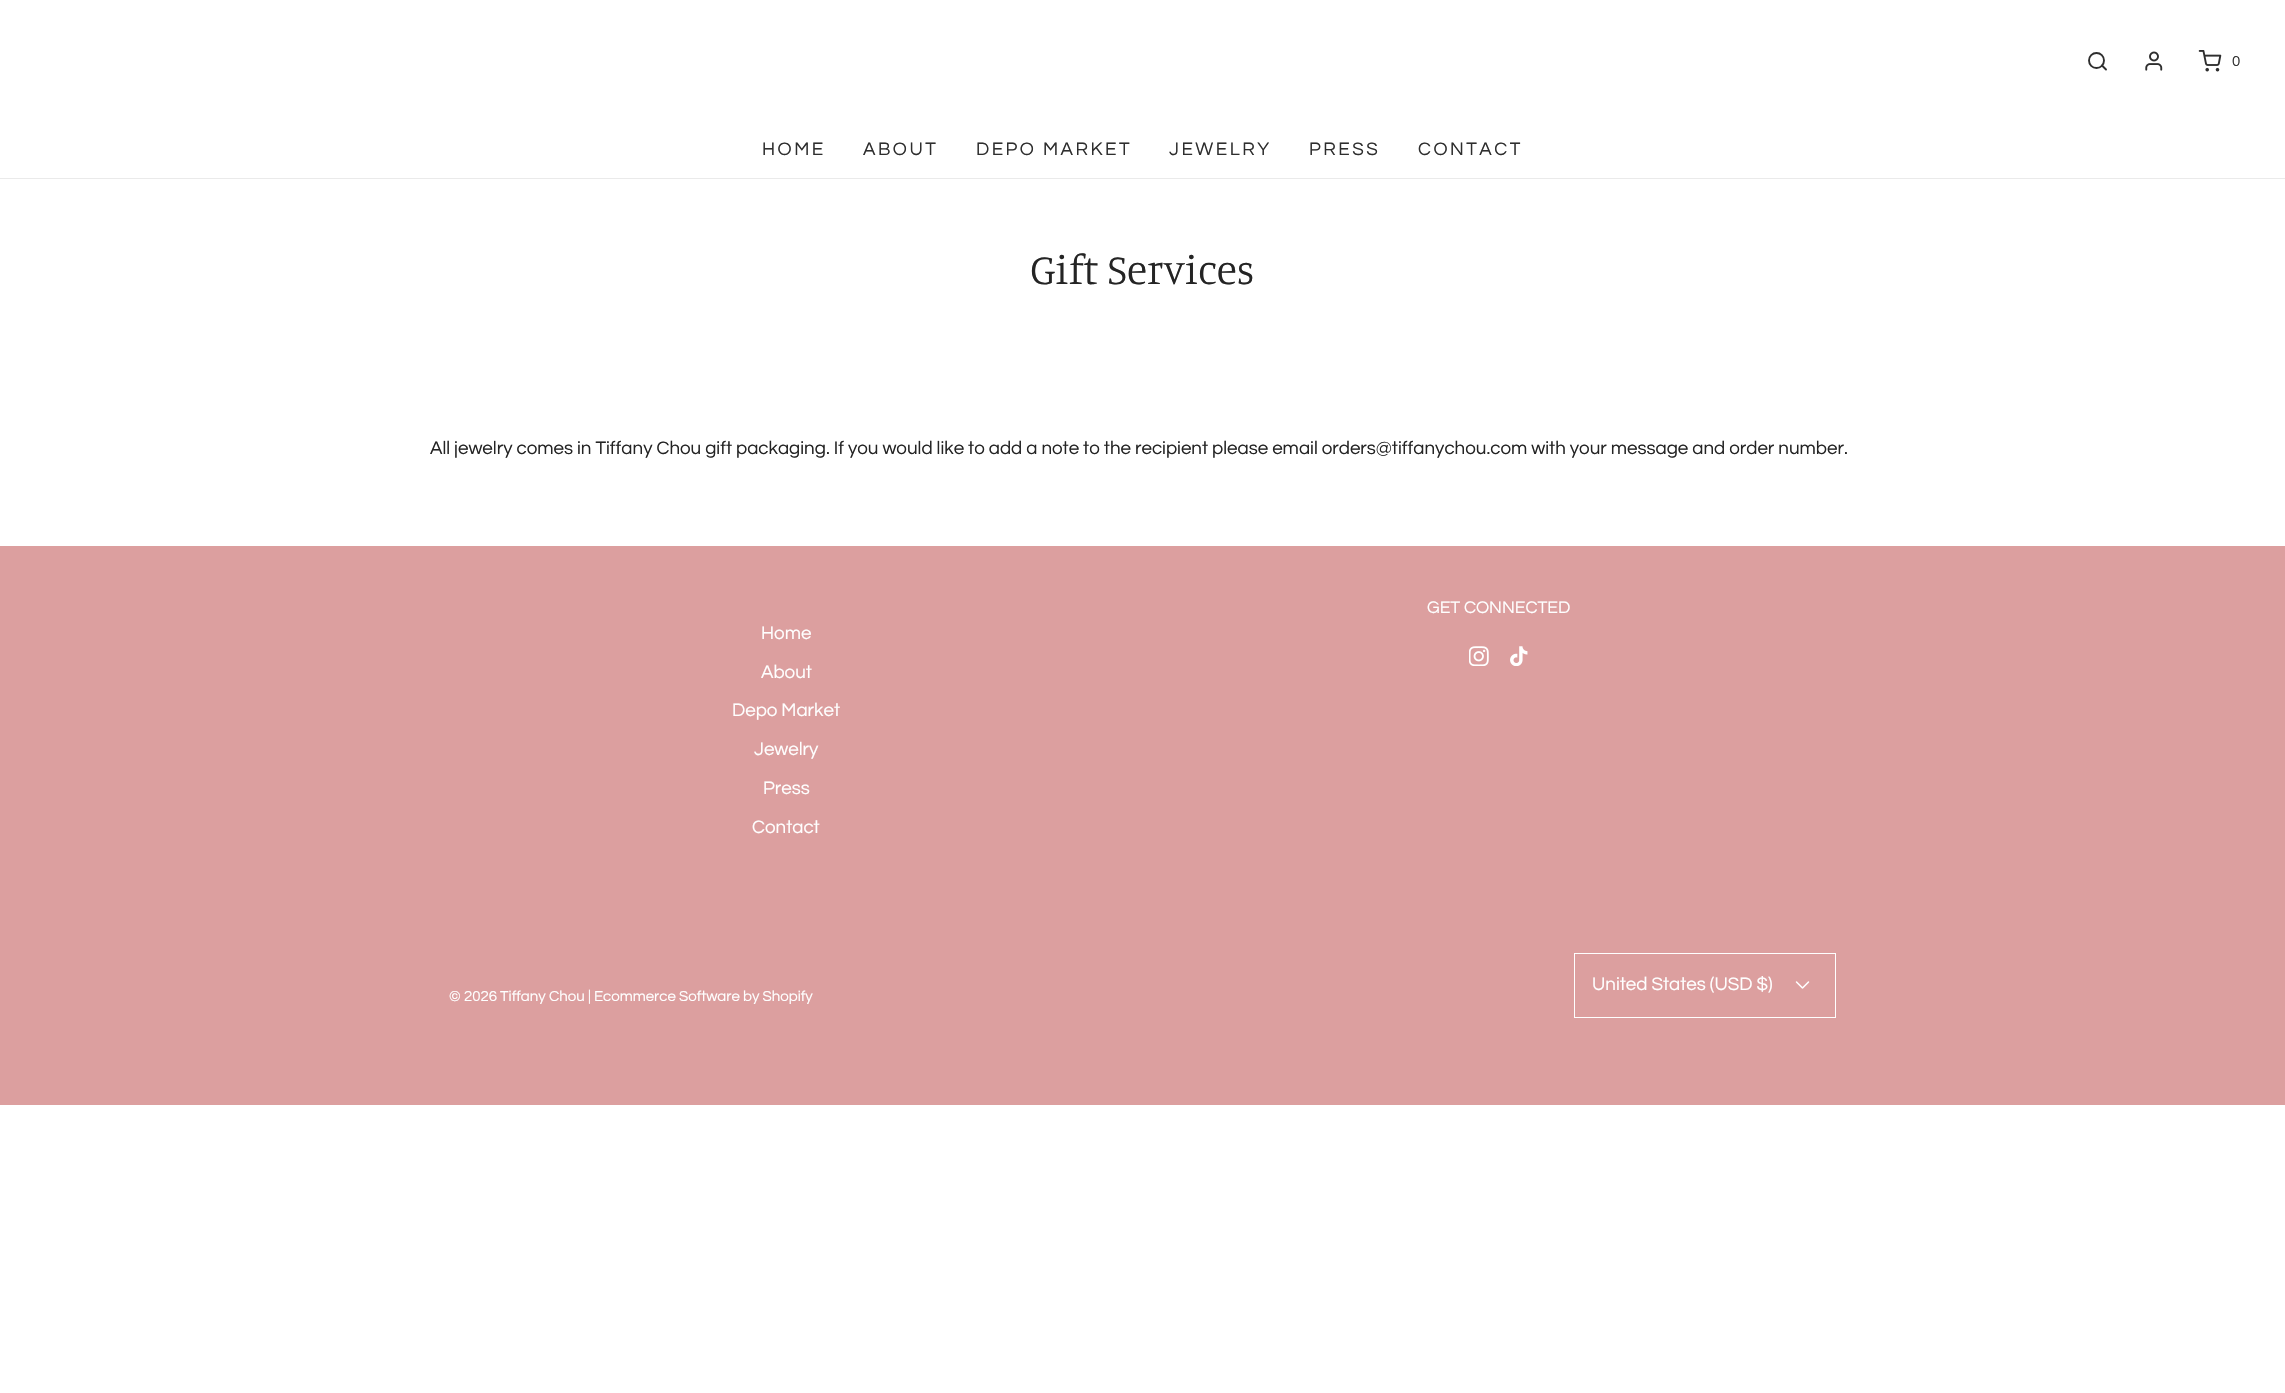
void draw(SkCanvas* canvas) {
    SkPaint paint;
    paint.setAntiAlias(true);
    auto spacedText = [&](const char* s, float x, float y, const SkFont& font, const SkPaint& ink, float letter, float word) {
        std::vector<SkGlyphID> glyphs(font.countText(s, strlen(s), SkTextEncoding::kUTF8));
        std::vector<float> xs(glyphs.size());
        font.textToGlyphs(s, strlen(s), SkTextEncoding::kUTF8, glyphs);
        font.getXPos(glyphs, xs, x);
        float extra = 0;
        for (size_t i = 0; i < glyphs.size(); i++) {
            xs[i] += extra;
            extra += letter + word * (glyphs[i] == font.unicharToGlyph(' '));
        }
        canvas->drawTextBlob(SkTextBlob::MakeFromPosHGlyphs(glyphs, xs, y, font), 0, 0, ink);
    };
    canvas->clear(0xFFFFFFFF);
    paint.setColor(0xFFEAEAEA);
    canvas->drawRect(SkRect::MakeXYWH(0, 178, 2285, 1), paint);
    paint.setStyle(SkPaint::kStroke_Style);
    paint.setStrokeWidth(1.9f);
    paint.setColor(0xFF2E2E2E);
    canvas->drawCircle(2096.5f, 60.5f, 7.5f, paint);
    paint.setStrokeCap(SkPaint::kRound_Cap);
    paint.setStrokeJoin(SkPaint::kRound_Join);
    canvas->drawPath(SkPathBuilder().moveTo(2106, 69.5f).lineTo(2102, 65.5f).detach(), paint);
    canvas->drawImageRect(SkImages::DeferredFromEncodedData(SkData::MakeFromFileName("img1.png")), SkRect::MakeXYWH(2145, 51, 18, 20), SkSamplingOptions());
    canvas->drawImageRect(SkImages::DeferredFromEncodedData(SkData::MakeFromFileName("img2.png")), SkRect::MakeXYWH(2198, 50, 24, 22), SkSamplingOptions());
    SkFont font1(fontMgr->matchFamilyStyle("Questrial", SkFontStyle::Normal()), 15);
    font1.setSubpixel(true);
    paint.setStyle(SkPaint::kFill_Style);
    canvas->drawString("0", 2232, 66, font1, paint);
    SkFont font2(fontMgr->matchFamilyStyle("Questrial", SkFontStyle::Normal()), 18.75f);
    font2.setSubpixel(true);
    spacedText("HOME", 762, 155, font2, paint, 2.5f, 0);
    spacedText("ABOUT", 863, 155, font2, paint, 2.5f, 0);
    spacedText("DEPO MARKET", 976, 155, font2, paint, 2.5f, 0);
    spacedText("JEWELRY", 1169, 155, font2, paint, 2.5f, 0);
    spacedText("PRESS", 1309, 155, font2, paint, 2.5f, 0);
    spacedText("CONTACT", 1418, 155, font2, paint, 2.5f, 0);
    SkFont font3(fontMgr->matchFamilyStyle("Manuale", SkFontStyle(300, SkFontStyle::kNormal_Width, SkFontStyle::kUpright_Slant)), 42.5f);
    font3.setSubpixel(true);
    paint.setColor(0xFF242424);
    canvas->drawString("Gift Services", 1030, 284, font3, paint);
    canvas->drawString("All jewelry comes in Tiffany Chou gift packaging. If you would like to add a note to the recipient please email orders@tiffanychou.com with your message and order number.", 430, 454, font2, paint);
    paint.setColor(0xFFDC9F9F);
    canvas->drawRect(SkRect::MakeXYWH(0, 546, 2285, 559), paint);
    SkFont font4(fontMgr->matchFamilyStyle("Questrial", SkFontStyle::Normal()), 17.5f);
    font4.setSubpixel(true);
    paint.setColor(0xFFFFFFFF);
    canvas->drawString("GET CONNECTED", 1427, 613, font4, paint);
    canvas->drawImageRect(SkImages::DeferredFromEncodedData(SkData::MakeFromFileName("img3.png")), SkRect::MakeXYWH(1469, 646, 20, 20), SkSamplingOptions());
    canvas->drawImageRect(SkImages::DeferredFromEncodedData(SkData::MakeFromFileName("img4.png")), SkRect::MakeXYWH(1510, 646, 18, 20), SkSamplingOptions());
    canvas->drawString("Home", 761, 639, font2, paint);
    canvas->drawString("About", 761, 678, font2, paint);
    canvas->drawString("Depo Market", 732, 716, font2, paint);
    canvas->drawString("Jewelry", 754, 755, font2, paint);
    canvas->drawString("Press", 763, 794, font2, paint);
    canvas->drawString("Contact", 752, 833, font2, paint);
    paint.setStyle(SkPaint::kStroke_Style);
    paint.setStrokeWidth(1);
    paint.setStrokeCap(SkPaint::kButt_Cap);
    paint.setStrokeJoin(SkPaint::kMiter_Join);
    canvas->drawRect(SkRect::MakeXYWH(1574.5f, 953.5f, 261, 64), paint);
    paint.setStyle(SkPaint::kFill_Style);
    canvas->drawString("United States (USD $)", 1592, 990, font2, paint);
    canvas->drawImageRect(SkImages::DeferredFromEncodedData(SkData::MakeFromFileName("img5.png")), SkRect::MakeXYWH(1795, 981, 15, 8), SkSamplingOptions());
    canvas->drawString("© 2026 Tiffany Chou | Ecommerce Software by Shopify", 449, 1001, font1, paint);
}
